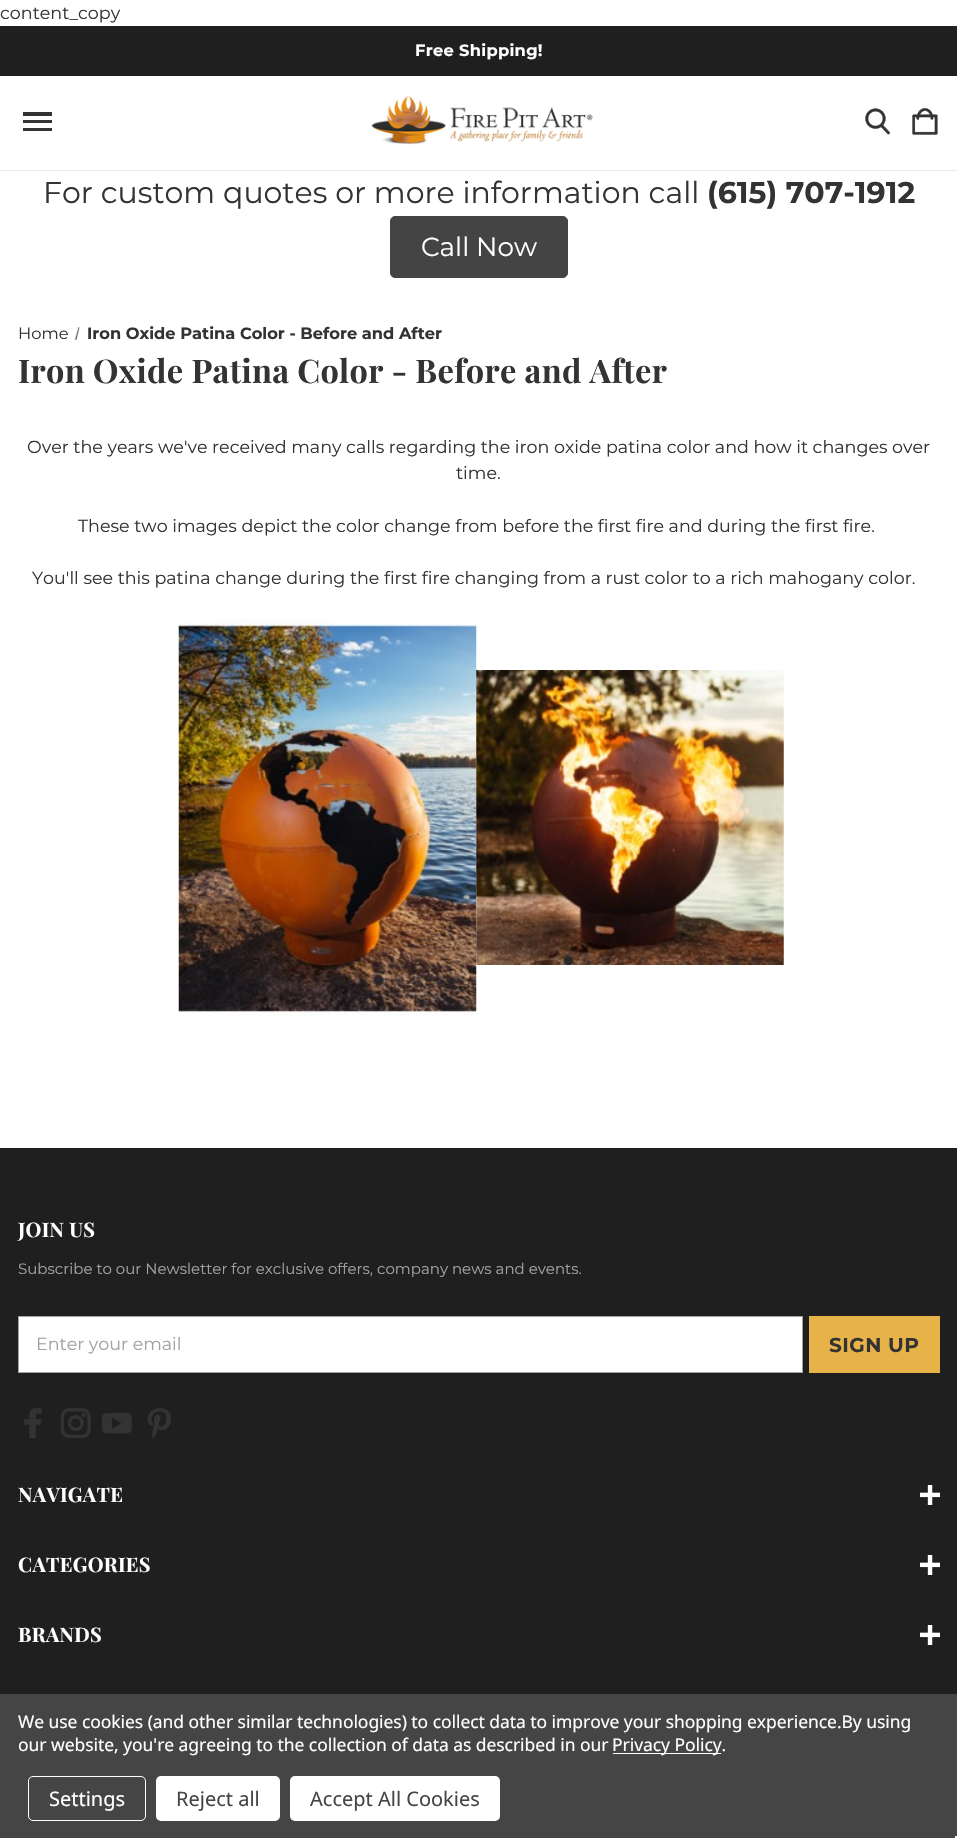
void draw(SkCanvas* canvas) {
    SkPaint paint;
    paint.setAntiAlias(true);
    auto spacedText = [&](const char* s, float x, float y, const SkFont& font, const SkPaint& ink, float letter, float word) {
        std::vector<SkGlyphID> glyphs(font.countText(s, strlen(s), SkTextEncoding::kUTF8));
        std::vector<float> xs(glyphs.size());
        font.textToGlyphs(s, strlen(s), SkTextEncoding::kUTF8, glyphs);
        font.getXPos(glyphs, xs, x);
        float extra = 0;
        for (size_t i = 0; i < glyphs.size(); i++) {
            xs[i] += extra;
            extra += letter + word * (glyphs[i] == font.unicharToGlyph(' '));
        }
        canvas->drawTextBlob(SkTextBlob::MakeFromPosHGlyphs(glyphs, xs, y, font), 0, 0, ink);
    };
    canvas->clear(0xFFFFFFFF);
    SkFont font1(fontMgr->matchFamilyStyle("Montserrat", SkFontStyle::Normal()), 17.5f);
    font1.setSubpixel(true);
    paint.setColor(0xFF333333);
    canvas->drawString("content_copy", 0, 19, font1, paint);
    paint.setColor(0xFFEBEBEB);
    canvas->drawRect(SkRect::MakeXYWH(0, 170, 957, 1), paint);
    paint.setColor(0xFF1F1F1F);
    canvas->drawRect(SkRect::MakeXYWH(0, 26, 957, 50), paint);
    SkFont font2(fontMgr->matchFamilyStyle("Montserrat", SkFontStyle::Bold()), 16.25f);
    font2.setSubpixel(true);
    paint.setColor(0xFFFFFFFF);
    spacedText("Free Shipping!", 415, 56, font2, paint, 0.3f, 0);
    paint.setColor(0xFF333333);
    canvas->drawRect(SkRect::MakeXYWH(23, 112, 29, 4), paint);
    canvas->drawRect(SkRect::MakeXYWH(23, 120, 29, 3), paint);
    canvas->drawRect(SkRect::MakeXYWH(23, 128, 29, 3), paint);
    canvas->drawImageRect(SkImages::DeferredFromEncodedData(SkData::MakeFromFileName("img1.png")), SkRect::MakeXYWH(371, 95, 222, 50), SkSamplingOptions());
    canvas->drawImageRect(SkImages::DeferredFromEncodedData(SkData::MakeFromFileName("img2.png")), SkRect::MakeXYWH(865, 108, 25, 27), SkSamplingOptions());
    canvas->drawImageRect(SkImages::DeferredFromEncodedData(SkData::MakeFromFileName("img3.png")), SkRect::MakeXYWH(912, 108, 26, 27), SkSamplingOptions());
    SkFont font3(fontMgr->matchFamilyStyle("Montserrat", SkFontStyle::Normal()), 30);
    font3.setSubpixel(true);
    canvas->drawString("For custom quotes or more information call", 43, 203, font3, paint);
    SkFont font4(fontMgr->matchFamilyStyle("Montserrat", SkFontStyle::Bold()), 30);
    font4.setSubpixel(true);
    canvas->drawString("(615) 707-1912", 707, 203, font4, paint);
    paint.setColor(0xFF444444);
    canvas->drawRoundRect(SkRect::MakeXYWH(390.5f, 216.5f, 177, 61), 4.5f, 4.5f, paint);
    paint.setStyle(SkPaint::kStroke_Style);
    paint.setStrokeWidth(1);
    canvas->drawRoundRect(SkRect::MakeXYWH(390.5f, 216.5f, 177, 61), 4.5f, 4.5f, paint);
    SkFont font5(fontMgr->matchFamilyStyle("Montserrat", SkFontStyle::Normal()), 26.25f);
    font5.setSubpixel(true);
    paint.setStyle(SkPaint::kFill_Style);
    paint.setColor(0xFFFFFFFF);
    canvas->drawString("Call Now", 421, 256, font5, paint);
    SkFont font6(fontMgr->matchFamilyStyle("Montserrat", SkFontStyle::Normal()), 16.25f);
    font6.setSubpixel(true);
    paint.setColor(0xFF333333);
    canvas->drawString("Home", 18, 339, font6, paint);
    paint.setColor(0xFF757575);
    canvas->drawPath(SkPathBuilder().moveTo(78.5f, 327).lineTo(79.5f, 327.5f).lineTo(76.5f, 340).lineTo(75, 339.5f).close().detach(), paint);
    paint.setColor(0xFF333333);
    canvas->drawString("Iron Oxide Patina Color - Before and After", 87, 339, font2, paint);
    SkFont font7(fontMgr->matchFamilyStyle("Playfair Display", SkFontStyle::Bold()), 32.5f);
    font7.setSubpixel(true);
    spacedText("Iron Oxide Patina Color - Before and After", 18, 383, font7, paint, 0.3f, 0);
    canvas->drawString("Over the years we've received many calls regarding the iron oxide patina color and how it changes over", 27, 453, font1, paint);
    canvas->drawString("time.", 456, 479, font1, paint);
    canvas->drawString("These two images depict the color change from before the first fire and during the first fire.", 78, 532, font1, paint);
    canvas->drawString("You'll see this patina change during the first fire changing from a rust color to a rich mahogany color.", 32, 584, font1, paint);
    canvas->drawImageRect(SkImages::DeferredFromEncodedData(SkData::MakeFromFileName("img4.png")), SkRect::MakeXYWH(178, 619, 299, 397), SkSamplingOptions());
    canvas->drawImageRect(SkImages::DeferredFromEncodedData(SkData::MakeFromFileName("img5.png")), SkRect::MakeXYWH(476, 670, 308, 295), SkSamplingOptions());
    paint.setColor(0xFF1F1F1F);
    canvas->drawRect(SkRect::MakeXYWH(0, 1148, 957, 546), paint);
    SkFont font8(fontMgr->matchFamilyStyle("Playfair Display", SkFontStyle::Bold()), 20);
    font8.setSubpixel(true);
    paint.setColor(0xFFFFFFFF);
    spacedText("JOIN US", 18, 1237, font8, paint, 0.3f, 0);
    SkFont font9(fontMgr->matchFamilyStyle("Montserrat", SkFontStyle::Normal()), 15);
    font9.setSubpixel(true);
    paint.setColor(0xFFA2A2A2);
    canvas->drawString("Subscribe to our Newsletter for exclusive offers, company news and events.", 18, 1274, font9, paint);
    paint.setColor(0xFFFFFFFF);
    canvas->drawRect(SkRect::MakeXYWH(18.5f, 1316.5f, 784, 56), paint);
    paint.setStyle(SkPaint::kStroke_Style);
    paint.setColor(0xFFA2A2A2);
    canvas->drawRect(SkRect::MakeXYWH(18.5f, 1316.5f, 784, 56), paint);
    paint.setStyle(SkPaint::kFill_Style);
    canvas->drawString("Enter your email", 36, 1350, font1, paint);
    paint.setColor(0xFFE7B349);
    canvas->drawRect(SkRect::MakeXYWH(809, 1316, 131, 57), paint);
    SkFont font10(fontMgr->matchFamilyStyle("Montserrat", SkFontStyle::Bold()), 20);
    font10.setSubpixel(true);
    paint.setColor(0xFF333333);
    spacedText("SIGN UP", 829, 1352, font10, paint, 0.5f, 0);
    canvas->drawImageRect(SkImages::DeferredFromEncodedData(SkData::MakeFromFileName("img6.png")), SkRect::MakeXYWH(24, 1408, 18, 30), SkSamplingOptions());
    canvas->drawImageRect(SkImages::DeferredFromEncodedData(SkData::MakeFromFileName("img7.png")), SkRect::MakeXYWH(60, 1408, 31, 30), SkSamplingOptions());
    canvas->drawImageRect(SkImages::DeferredFromEncodedData(SkData::MakeFromFileName("img8.png")), SkRect::MakeXYWH(102, 1413, 30, 21), SkSamplingOptions());
    canvas->drawImageRect(SkImages::DeferredFromEncodedData(SkData::MakeFromFileName("img9.png")), SkRect::MakeXYWH(147, 1408, 24, 30), SkSamplingOptions());
    paint.setColor(0xFFFFFFFF);
    spacedText("NAVIGATE", 18, 1502, font8, paint, 0.3f, 0);
    canvas->drawImageRect(SkImages::DeferredFromEncodedData(SkData::MakeFromFileName("img10.png")), SkRect::MakeXYWH(920, 1485, 20, 20), SkSamplingOptions());
    spacedText("CATEGORIES", 18, 1572, font8, paint, 0.3f, 0);
    canvas->drawImageRect(SkImages::DeferredFromEncodedData(SkData::MakeFromFileName("img10.png")), SkRect::MakeXYWH(920, 1555, 20, 20), SkSamplingOptions());
    spacedText("BRANDS", 18, 1642, font8, paint, 0.3f, 0);
    canvas->drawImageRect(SkImages::DeferredFromEncodedData(SkData::MakeFromFileName("img10.png")), SkRect::MakeXYWH(920, 1625, 20, 20), SkSamplingOptions());
    paint.setColor(0xFF454545);
    canvas->drawRect(SkRect::MakeXYWH(0, 1694, 957, 144), paint);
    SkFont font11(fontMgr->matchFamilyStyle("Noto Sans", SkFontStyle::Normal()), 17.5f);
    font11.setSubpixel(true);
    paint.setColor(0xFFFFFFFF);
    spacedText("We use cookies (and other similar technologies) to collect data to improve your shopping experience.By using", 18, 1728, font11, paint, -0.06f, 0);
    spacedText("our website, you're agreeing to the collection of data as described in our", 18, 1751, font11, paint, -0.06f, 0);
    canvas->drawRect(SkRect::MakeXYWH(613, 1753, 108, 1), paint);
    spacedText("Privacy Policy.", 612, 1751, font11, paint, -0.06f, 0);
    paint.setStyle(SkPaint::kStroke_Style);
    canvas->drawRoundRect(SkRect::MakeXYWH(28.5f, 1776.5f, 117, 44), 4.5f, 4.5f, paint);
    SkFont font12(fontMgr->matchFamilyStyle("Noto Sans", SkFontStyle::Normal()), 20);
    font12.setSubpixel(true);
    paint.setStyle(SkPaint::kFill_Style);
    canvas->drawString("Settings", 49, 1806, font12, paint);
    canvas->drawRoundRect(SkRect::MakeXYWH(156, 1776, 124, 45), 5, 5, paint);
    paint.setColor(0xFF454545);
    canvas->drawString("Reject all", 176, 1806, font12, paint);
    paint.setColor(0xFFFFFFFF);
    canvas->drawRoundRect(SkRect::MakeXYWH(290, 1776, 210, 45), 5, 5, paint);
    paint.setColor(0xFF454545);
    canvas->drawString("Accept All Cookies", 310, 1806, font12, paint);
    paint.setColor(0xFFF5F5F5);
    canvas->drawRect(SkRect::MakeXYWH(955, 1836, 2, 2), paint);
}
